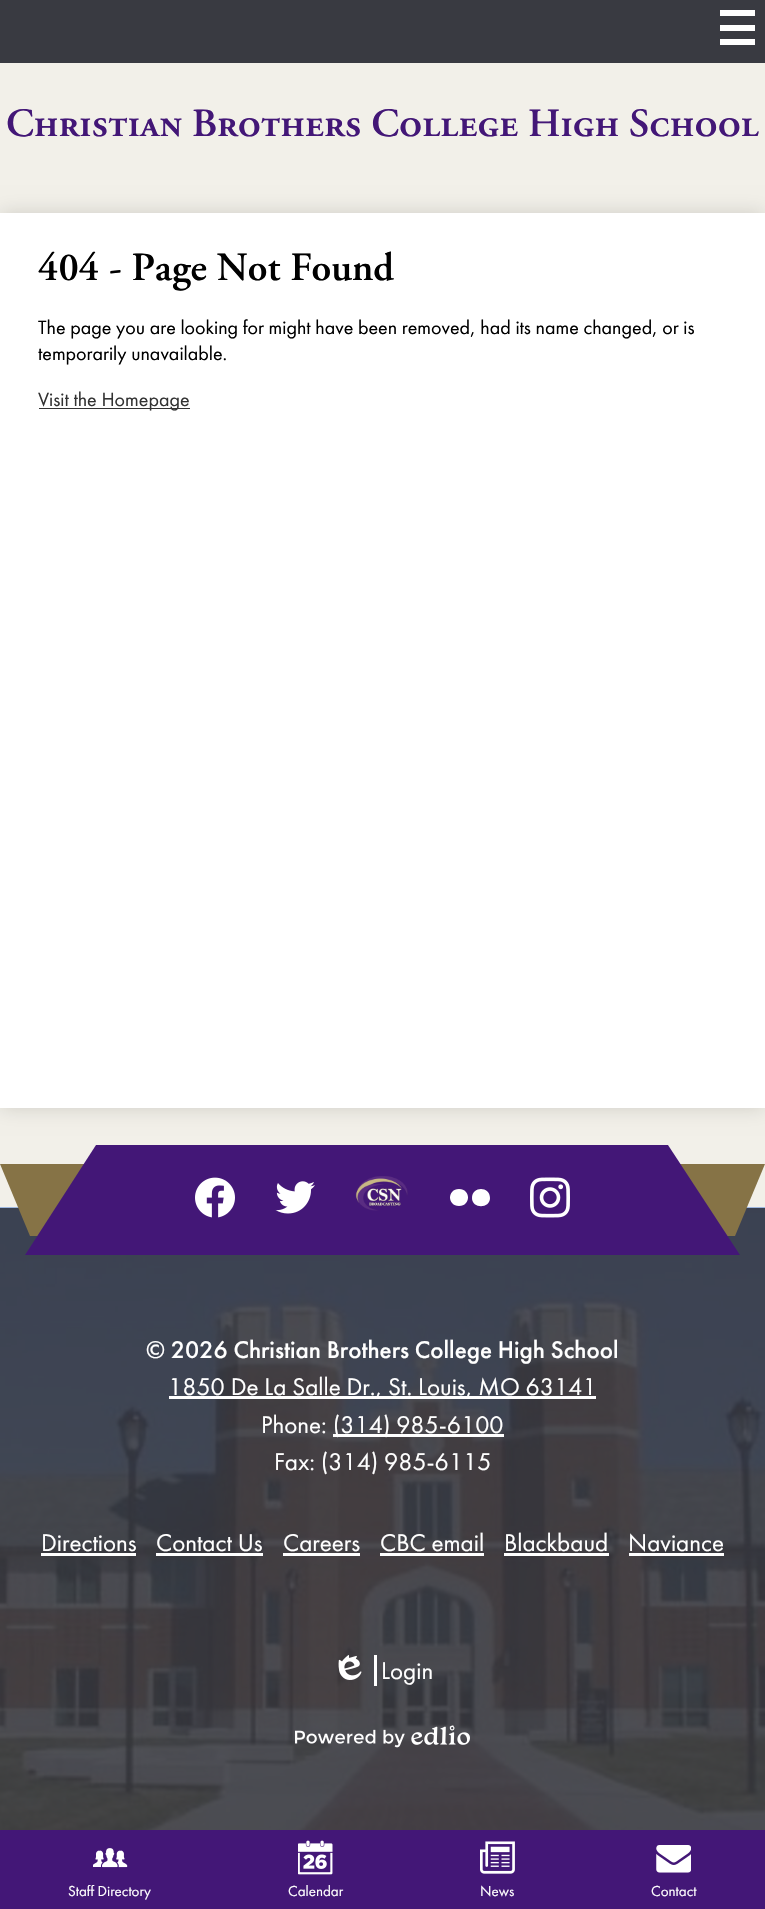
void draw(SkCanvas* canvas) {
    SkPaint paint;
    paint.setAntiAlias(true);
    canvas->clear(0xFFF2F0E9);
    paint.setColor(0xFF393A41);
    canvas->drawRect(SkRect::MakeXYWH(0, 0, 765, 63), paint);
    paint.setColor(0xFFFFFFFF);
    canvas->drawRect(SkRect::MakeXYWH(720, 10, 35, 6), paint);
    canvas->drawRect(SkRect::MakeXYWH(720, 25, 35, 6), paint);
    canvas->drawRect(SkRect::MakeXYWH(720, 39, 35, 6), paint);
    SkFont font1(fontMgr->matchFamilyStyle("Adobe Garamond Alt", SkFontStyle(600, SkFontStyle::kNormal_Width, SkFontStyle::kUpright_Slant)), 40);
    font1.setSubpixel(true);
    paint.setColor(0xFF431777);
    canvas->drawString("Christian Brothers College High School", 6, 136, font1, paint);
    paint.setColor(0x26000000);
    paint.setMaskFilter(SkMaskFilter::MakeBlur(kNormal_SkBlurStyle, 9.5f));
    canvas->drawRect(SkRect::MakeXYWH(0, 213, 765, 895), paint);
    paint.setMaskFilter(nullptr);
    paint.setColor(0xFFFFFFFF);
    canvas->drawRect(SkRect::MakeXYWH(0, 213, 765, 895), paint);
    SkFont font2(fontMgr->matchFamilyStyle("Adobe Garamond", SkFontStyle(600, SkFontStyle::kNormal_Width, SkFontStyle::kUpright_Slant)), 40);
    font2.setSubpixel(true);
    paint.setColor(0xFF000000);
    canvas->drawString("404 - Page Not Found", 38, 280, font2, paint);
    SkFont font3(fontMgr->matchFamilyStyle("Futura PT", SkFontStyle::Normal()), 20);
    font3.setSubpixel(true);
    canvas->drawString("The page you are looking for might have been removed, had its name changed, or is", 38, 334, font3, paint);
    canvas->drawString("temporarily unavailable.", 38, 360, font3, paint);
    paint.setColor(0xFF333333);
    canvas->drawRect(SkRect::MakeXYWH(39, 408, 151, 1), paint);
    canvas->drawString("Visit the Homepage", 38, 406, font3, paint);
    canvas->drawImageRect(SkImages::DeferredFromEncodedData(SkData::MakeFromFileName("img1.png")), SkRect::MakeXYWH(0, 1207, 765, 623), SkSamplingOptions());
    paint.setColor(0xFF867346);
    canvas->drawPath(SkPathBuilder().moveTo(30, 1236).lineTo(0, 1164).lineTo(765, 1164).lineTo(735, 1236).close().detach(), paint);
    paint.setColor(0xFF431777);
    canvas->drawPath(SkPathBuilder().moveTo(96, 1145).lineTo(25, 1255).lineTo(740, 1255).lineTo(668, 1145).close().detach(), paint);
    canvas->drawImageRect(SkImages::DeferredFromEncodedData(SkData::MakeFromFileName("img2.png")), SkRect::MakeXYWH(195, 1177, 40, 41), SkSamplingOptions());
    canvas->drawImageRect(SkImages::DeferredFromEncodedData(SkData::MakeFromFileName("img3.png")), SkRect::MakeXYWH(275, 1181, 40, 33), SkSamplingOptions());
    canvas->drawImageRect(SkImages::DeferredFromEncodedData(SkData::MakeFromFileName("img4.png")), SkRect::MakeXYWH(355, 1176, 53, 35), SkSamplingOptions());
    paint.setColor(0xFFFFFFFF);
    canvas->drawPath(SkPathBuilder().moveTo(490, 1198).cubicTo(490, 1209, 472, 1209, 472, 1198).cubicTo(472, 1186, 490, 1186, 490, 1198).close().moveTo(459, 1189).cubicTo(447, 1189, 447, 1206, 459, 1206).cubicTo(471, 1206, 471, 1189, 459, 1189).close().detach(), paint);
    canvas->drawImageRect(SkImages::DeferredFromEncodedData(SkData::MakeFromFileName("img5.png")), SkRect::MakeXYWH(530, 1177, 40, 41), SkSamplingOptions());
    SkFont font4(fontMgr->matchFamilyStyle("Futura PT", SkFontStyle(500, SkFontStyle::kNormal_Width, SkFontStyle::kUpright_Slant)), 25);
    font4.setSubpixel(true);
    canvas->drawString("© 2026 Christian Brothers College High School", 146, 1358, font4, paint);
    canvas->drawRect(SkRect::MakeXYWH(169, 1396, 427, 3), paint);
    SkFont font5(fontMgr->matchFamilyStyle("Futura PT", SkFontStyle::Normal()), 25);
    font5.setSubpixel(true);
    canvas->drawString("1850 De La Salle Dr., St. Louis, MO 63141", 168, 1395, font5, paint);
    canvas->drawString("Phone:", 261, 1433, font5, paint);
    canvas->drawRect(SkRect::MakeXYWH(333, 1434, 171, 3), paint);
    canvas->drawString("(314) 985-6100", 333, 1433, font5, paint);
    canvas->drawString("Fax: (314) 985-6115", 274, 1470, font5, paint);
    canvas->drawString("Directions", 41, 1551, font5, paint);
    canvas->drawRect(SkRect::MakeXYWH(41, 1553, 95, 3), paint);
    canvas->drawString("Contact Us", 156, 1551, font5, paint);
    canvas->drawRect(SkRect::MakeXYWH(156, 1553, 107, 3), paint);
    canvas->drawString("Careers", 283, 1551, font5, paint);
    canvas->drawRect(SkRect::MakeXYWH(283, 1553, 77, 3), paint);
    canvas->drawString("CBC email", 380, 1551, font5, paint);
    canvas->drawRect(SkRect::MakeXYWH(380, 1553, 104, 3), paint);
    canvas->drawString("Blackbaud", 504, 1551, font5, paint);
    canvas->drawRect(SkRect::MakeXYWH(504, 1553, 105, 3), paint);
    canvas->drawString("Naviance", 628, 1551, font5, paint);
    canvas->drawRect(SkRect::MakeXYWH(629, 1553, 95, 3), paint);
    canvas->drawRect(SkRect::MakeXYWH(374, 1655, 3, 31), paint);
    canvas->drawImageRect(SkImages::DeferredFromEncodedData(SkData::MakeFromFileName("img6.png")), SkRect::MakeXYWH(338, 1655, 24, 25), SkSamplingOptions());
    canvas->drawString("Login", 381, 1679, font5, paint);
    canvas->drawImageRect(SkImages::DeferredFromEncodedData(SkData::MakeFromFileName("img7.png")), SkRect::MakeXYWH(295, 1725, 175, 23), SkSamplingOptions());
    paint.setColor(0xFF431777);
    canvas->drawRect(SkRect::MakeXYWH(0, 1830, 765, 79), paint);
    canvas->drawImageRect(SkImages::DeferredFromEncodedData(SkData::MakeFromFileName("img8.png")), SkRect::MakeXYWH(93, 1848, 35, 20), SkSamplingOptions());
    SkFont font6(fontMgr->matchFamilyStyle("Futura PT", SkFontStyle::Normal()), 15);
    font6.setSubpixel(true);
    paint.setColor(0xFFFFFFFF);
    canvas->drawString("Staff Directory", 68, 1896, font6, paint);
    canvas->drawImageRect(SkImages::DeferredFromEncodedData(SkData::MakeFromFileName("img9.png")), SkRect::MakeXYWH(298, 1840, 35, 35), SkSamplingOptions());
    canvas->drawString("Calendar", 288, 1896, font6, paint);
    canvas->drawImageRect(SkImages::DeferredFromEncodedData(SkData::MakeFromFileName("img10.png")), SkRect::MakeXYWH(480, 1841, 35, 33), SkSamplingOptions());
    canvas->drawString("News", 480, 1896, font6, paint);
    canvas->drawImageRect(SkImages::DeferredFromEncodedData(SkData::MakeFromFileName("img11.png")), SkRect::MakeXYWH(656, 1845, 35, 28), SkSamplingOptions());
    canvas->drawString("Contact", 651, 1896, font6, paint);
}
